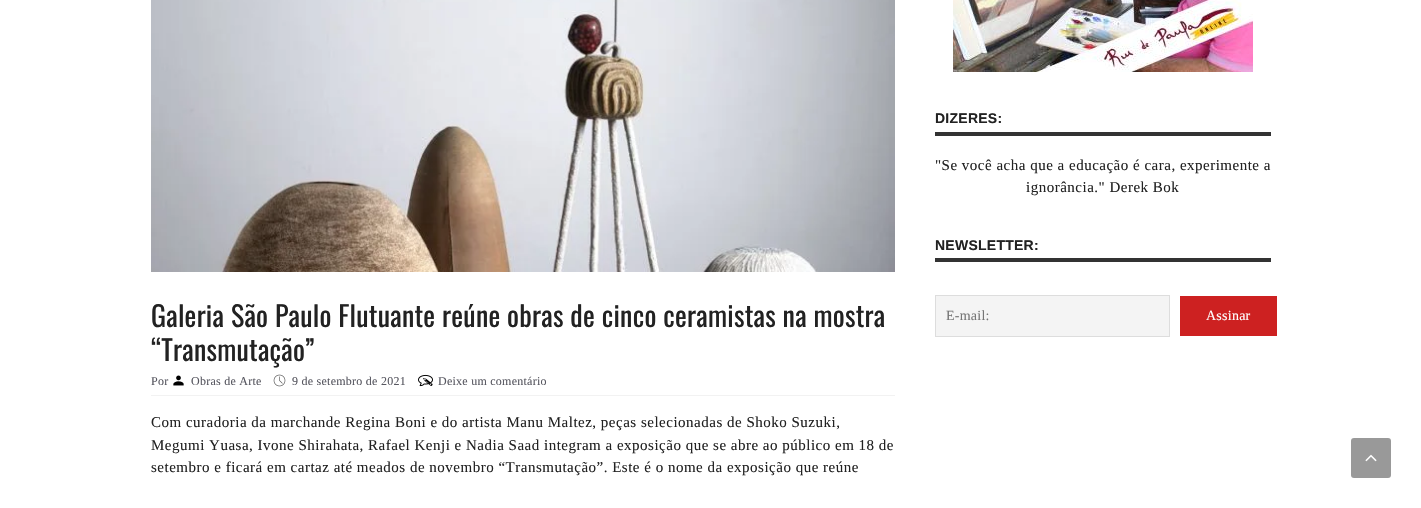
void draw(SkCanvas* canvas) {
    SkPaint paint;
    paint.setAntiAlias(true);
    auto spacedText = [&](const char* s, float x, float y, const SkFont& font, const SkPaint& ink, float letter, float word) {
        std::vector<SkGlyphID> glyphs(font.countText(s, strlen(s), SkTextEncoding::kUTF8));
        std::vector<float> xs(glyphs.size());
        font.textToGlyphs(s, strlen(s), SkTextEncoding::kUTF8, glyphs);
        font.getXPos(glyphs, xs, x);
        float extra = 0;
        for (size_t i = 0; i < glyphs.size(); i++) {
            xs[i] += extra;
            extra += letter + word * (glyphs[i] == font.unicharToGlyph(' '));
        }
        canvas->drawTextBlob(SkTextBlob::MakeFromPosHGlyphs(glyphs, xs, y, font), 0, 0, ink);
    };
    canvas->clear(0xFFFFFFFF);
    canvas->drawImageRect(SkImages::DeferredFromEncodedData(SkData::MakeFromFileName("img1.png")), SkRect::MakeXYWH(953, 0, 300, 72), SkSamplingOptions());
    paint.setColor(0xFF333333);
    canvas->drawRect(SkRect::MakeXYWH(935, 132, 336, 4), paint);
    SkFont font1(fontMgr->matchFamilyStyle("Liberation Sans", SkFontStyle::Bold()), 14);
    font1.setSubpixel(true);
    paint.setColor(0xFF222222);
    spacedText("DIZERES:", 935, 123, font1, paint, 0.25f, 0);
    SkFont font2(fontMgr->matchFamilyStyle("Liberation Serif", SkFontStyle::Normal()), 15);
    font2.setSubpixel(true);
    spacedText("\"Se você acha que a educação é cara, experimente a", 935, 170, font2, paint, 0.5f, 0);
    spacedText("ignorância.\" Derek Bok", 1026, 192, font2, paint, 0.5f, 0);
    paint.setColor(0xFF333333);
    canvas->drawRect(SkRect::MakeXYWH(935, 258, 336, 4), paint);
    paint.setColor(0xFF222222);
    spacedText("NEWSLETTER:", 935, 250, font1, paint, 0.25f, 0);
    paint.setColor(0xFFF4F4F4);
    canvas->drawRect(SkRect::MakeXYWH(935.5f, 295.5f, 234, 41), paint);
    paint.setStyle(SkPaint::kStroke_Style);
    paint.setStrokeWidth(1);
    paint.setColor(0xFFDDDDDD);
    canvas->drawRect(SkRect::MakeXYWH(935.5f, 295.5f, 234, 41), paint);
    SkFont font3(fontMgr->matchFamilyStyle("Liberation Serif", SkFontStyle::Normal()), 14);
    font3.setSubpixel(true);
    paint.setStyle(SkPaint::kFill_Style);
    paint.setColor(0xFF757575);
    spacedText("E-mail:", 946, 320, font3, paint, 0.25f, 0);
    paint.setColor(0xFFCD2121);
    canvas->drawRect(SkRect::MakeXYWH(1180, 296, 97, 40), paint);
    paint.setColor(0xFFFFFFFF);
    spacedText("Assinar", 1206, 320, font3, paint, 0.25f, 0);
    canvas->drawImageRect(SkImages::DeferredFromEncodedData(SkData::MakeFromFileName("img2.png")), SkRect::MakeXYWH(151, 0, 744, 272), SkSamplingOptions());
    paint.setColor(0xFFF2F2F2);
    canvas->drawRect(SkRect::MakeXYWH(151, 395, 744, 1), paint);
    SkFont font4(fontMgr->matchFamilyStyle("Oswald", SkFontStyle::Normal()), 28);
    font4.setSubpixel(true);
    paint.setColor(0xFF222222);
    spacedText("Galeria São Paulo Flutuante reúne obras de cinco ceramistas na mostra", 151, 327, font4, paint, 0.25f, 0);
    spacedText("“Transmutação”", 151, 361, font4, paint, 0.25f, 0);
    SkFont font5(fontMgr->matchFamilyStyle("Liberation Serif", SkFontStyle::Normal()), 12);
    font5.setSubpixel(true);
    paint.setColor(0xFF575760);
    spacedText("Por", 151, 385, font5, paint, 0.25f, 0);
    canvas->drawImageRect(SkImages::DeferredFromEncodedData(SkData::MakeFromFileName("img3.png")), SkRect::MakeXYWH(173, 375, 11, 11), SkSamplingOptions());
    spacedText("Obras de Arte", 191, 385, font5, paint, 0.25f, 0);
    canvas->drawImageRect(SkImages::DeferredFromEncodedData(SkData::MakeFromFileName("img4.png")), SkRect::MakeXYWH(273, 374, 13, 13), SkSamplingOptions());
    spacedText("9 de setembro de 2021", 292, 385, font5, paint, 0.25f, 0);
    canvas->drawImageRect(SkImages::DeferredFromEncodedData(SkData::MakeFromFileName("img5.png")), SkRect::MakeXYWH(418, 374, 15, 13), SkSamplingOptions());
    spacedText("Deixe um comentário", 438, 385, font5, paint, 0.25f, 0);
    paint.setColor(0xFF222222);
    spacedText("Com curadoria da marchande Regina Boni e do artista Manu Maltez, peças selecionadas de Shoko Suzuki,", 151, 427, font2, paint, 0.5f, 0);
    spacedText("Megumi Yuasa, Ivone Shirahata, Rafael Kenji e Nadia Saad integram a exposição que se abre ao público em 18 de", 151, 450, font2, paint, 0.5f, 0);
    spacedText("setembro e ficará em cartaz até meados de novembro “Transmutação”. Este é o nome da exposição que reúne", 151, 472, font2, paint, 0.5f, 0);
    paint.setColor(0xFF999999);
    canvas->drawRoundRect(SkRect::MakeXYWH(1351, 438, 40, 40), 3, 3, paint);
    canvas->drawImageRect(SkImages::DeferredFromEncodedData(SkData::MakeFromFileName("img6.png")), SkRect::MakeXYWH(1365, 454, 12, 8), SkSamplingOptions());
}
